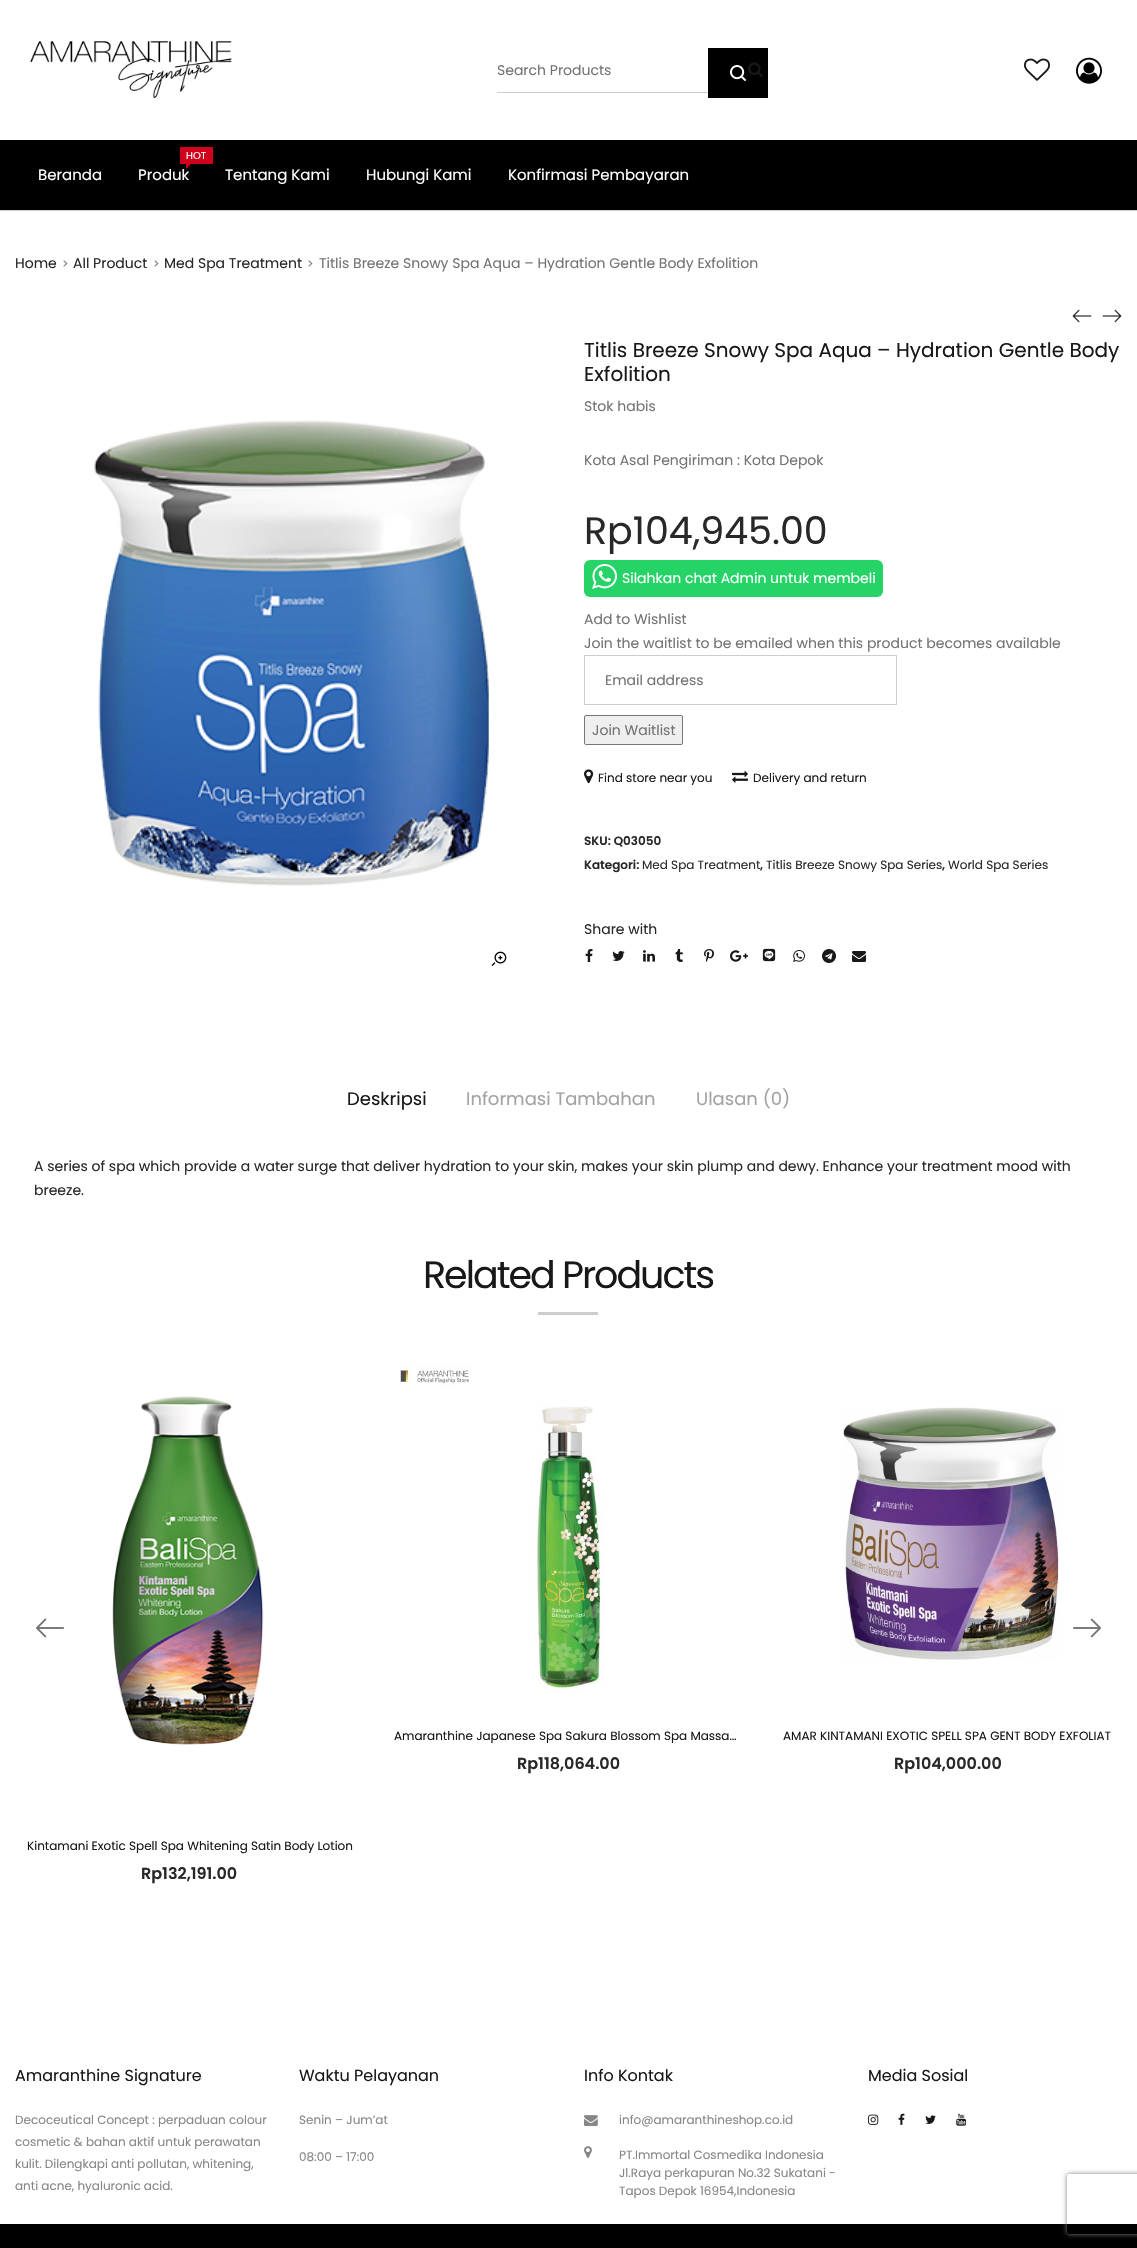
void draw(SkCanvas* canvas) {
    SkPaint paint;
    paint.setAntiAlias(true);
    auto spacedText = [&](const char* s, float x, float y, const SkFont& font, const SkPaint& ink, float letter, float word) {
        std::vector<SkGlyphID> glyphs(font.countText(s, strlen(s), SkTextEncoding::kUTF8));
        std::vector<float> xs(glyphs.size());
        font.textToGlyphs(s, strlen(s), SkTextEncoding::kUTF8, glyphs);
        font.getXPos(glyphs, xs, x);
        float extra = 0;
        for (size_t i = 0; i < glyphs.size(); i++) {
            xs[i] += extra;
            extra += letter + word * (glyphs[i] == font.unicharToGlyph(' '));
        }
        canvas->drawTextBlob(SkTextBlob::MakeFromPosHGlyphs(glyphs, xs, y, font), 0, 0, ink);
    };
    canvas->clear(0xFFFFFFFF);
    canvas->drawImageRect(SkImages::DeferredFromEncodedData(SkData::MakeFromFileName("img1.png")), SkRect::MakeXYWH(30, 41, 202, 57), SkSamplingOptions());
    paint.setColor(0xFF000000);
    canvas->drawRect(SkRect::MakeXYWH(708, 48, 60, 50), paint);
    canvas->drawImageRect(SkImages::DeferredFromEncodedData(SkData::MakeFromFileName("img2.png")), SkRect::MakeXYWH(730, 65, 16, 16), SkSamplingOptions());
    paint.setColor(0xFFCDCDCD);
    canvas->drawRect(SkRect::MakeXYWH(497, 92, 211, 1), paint);
    SkFont font1(fontMgr->matchFamilyStyle("Poppins", SkFontStyle::Normal()), 14);
    font1.setSubpixel(true);
    paint.setColor(0xFF737373);
    canvas->drawString("Search Products", 497, 75, font1, paint);
    canvas->drawImageRect(SkImages::DeferredFromEncodedData(SkData::MakeFromFileName("img3.png")), SkRect::MakeXYWH(748, 62, 15, 16), SkSamplingOptions());
    canvas->drawImageRect(SkImages::DeferredFromEncodedData(SkData::MakeFromFileName("img4.png")), SkRect::MakeXYWH(1024, 58, 26, 23), SkSamplingOptions());
    canvas->drawImageRect(SkImages::DeferredFromEncodedData(SkData::MakeFromFileName("img5.png")), SkRect::MakeXYWH(1076, 57, 26, 27), SkSamplingOptions());
    paint.setColor(0xFF000000);
    canvas->drawRect(SkRect::MakeXYWH(0, 140, 1137, 70), paint);
    SkFont font2(fontMgr->matchFamilyStyle("Poppins", SkFontStyle::Normal()), 15);
    font2.setSubpixel(true);
    paint.setColor(0xFFFFFFFF);
    canvas->drawString("Beranda", 38, 180, font2, paint);
    paint.setColor(0xFFD0021B);
    canvas->drawRect(SkRect::MakeXYWH(180, 147, 33, 17), paint);
    SkFont font3(fontMgr->matchFamilyStyle("Poppins", SkFontStyle::Normal()), 10);
    font3.setSubpixel(true);
    paint.setColor(0xFFFFFFFF);
    canvas->drawString("HOT", 186, 159, font3, paint);
    canvas->drawString("Produk", 138, 180, font2, paint);
    paint.setColor(0xFFD0021B);
    canvas->drawPath(SkPathBuilder().moveTo(186, 164).lineTo(191, 164).lineTo(186, 169).close().detach(), paint);
    paint.setColor(0xFFFFFFFF);
    canvas->drawString("Tentang Kami", 225, 180, font2, paint);
    canvas->drawString("Hubungi Kami", 366, 180, font2, paint);
    canvas->drawString("Konfirmasi Pembayaran", 508, 180, font2, paint);
    paint.setColor(0xFFCECECE);
    canvas->drawRect(SkRect::MakeXYWH(0, 210, 1137, 1), paint);
    paint.setColor(0xFF282828);
    canvas->drawString("Home", 15, 268, font1, paint);
    SkFont font4(fontMgr->matchFamilyStyle("Poppins", SkFontStyle::Normal()), 12);
    font4.setSubpixel(true);
    paint.setColor(0xFF737373);
    canvas->drawString(">", 62, 268, font4, paint);
    paint.setColor(0xFF282828);
    canvas->drawString("All Product", 73, 268, font1, paint);
    paint.setColor(0xFF737373);
    canvas->drawString(">", 153, 268, font4, paint);
    paint.setColor(0xFF282828);
    canvas->drawString("Med Spa Treatment", 164, 268, font1, paint);
    paint.setColor(0xFF737373);
    canvas->drawString(">", 307, 268, font4, paint);
    canvas->drawString("Titlis Breeze Snowy Spa Aqua – Hydration Gentle Body Exfolition", 319, 268, font1, paint);
    canvas->drawImageRect(SkImages::DeferredFromEncodedData(SkData::MakeFromFileName("img6.png")), SkRect::MakeXYWH(94, 420, 395, 466), SkSamplingOptions());
    canvas->drawImageRect(SkImages::DeferredFromEncodedData(SkData::MakeFromFileName("img7.png")), SkRect::MakeXYWH(491, 951, 16, 15), SkSamplingOptions());
    canvas->drawImageRect(SkImages::DeferredFromEncodedData(SkData::MakeFromFileName("img8.png")), SkRect::MakeXYWH(1072, 309, 20, 14), SkSamplingOptions());
    canvas->drawImageRect(SkImages::DeferredFromEncodedData(SkData::MakeFromFileName("img9.png")), SkRect::MakeXYWH(1102, 309, 20, 14), SkSamplingOptions());
    SkFont font5(fontMgr->matchFamilyStyle("Poppins", SkFontStyle::Normal()), 20);
    font5.setSubpixel(true);
    paint.setColor(0xFF181818);
    canvas->drawString("Titlis Breeze Snowy Spa Aqua – Hydration Gentle Body", 584, 357, font5, paint);
    canvas->drawString("Exfolition", 584, 381, font5, paint);
    paint.setColor(0xFF737373);
    canvas->drawString("Stok habis", 584, 411, font1, paint);
    canvas->drawString("Kota Asal Pengiriman : Kota Depok", 584, 465, font1, paint);
    SkFont font6(fontMgr->matchFamilyStyle("Poppins", SkFontStyle::Normal()), 38);
    font6.setSubpixel(true);
    paint.setColor(0xFF282828);
    canvas->drawString("Rp104,945.00", 584, 544, font6, paint);
    paint.setColor(0xFF25D367);
    canvas->drawRoundRect(SkRect::MakeXYWH(584, 560, 299, 37), 6, 6, paint);
    canvas->drawImageRect(SkImages::DeferredFromEncodedData(SkData::MakeFromFileName("img10.png")), SkRect::MakeXYWH(592, 564, 25, 25), SkSamplingOptions());
    paint.setColor(0xFFFFFFFF);
    canvas->drawString("Silahkan chat Admin untuk membeli", 622, 583, font1, paint);
    paint.setColor(0xFF737373);
    canvas->drawString("Add to Wishlist", 584, 624, font1, paint);
    canvas->drawString("Join the waitlist to be emailed when this product becomes available", 584, 648, font1, paint);
    paint.setStyle(SkPaint::kStroke_Style);
    paint.setStrokeWidth(1);
    paint.setColor(0xFFCDCDCD);
    canvas->drawRect(SkRect::MakeXYWH(584.5f, 655.5f, 312, 49), paint);
    paint.setStyle(SkPaint::kFill_Style);
    paint.setColor(0xFF737373);
    canvas->drawString("Email address", 605, 685, font1, paint);
    paint.setColor(0xFFEFEFEF);
    canvas->drawRoundRect(SkRect::MakeXYWH(584.5f, 715.5f, 98, 29), 1.5f, 1.5f, paint);
    paint.setStyle(SkPaint::kStroke_Style);
    paint.setColor(0xFF767676);
    canvas->drawRoundRect(SkRect::MakeXYWH(584.5f, 715.5f, 98, 29), 1.5f, 1.5f, paint);
    paint.setStyle(SkPaint::kFill_Style);
    paint.setColor(0xFF737373);
    canvas->drawString("Join Waitlist", 592, 735, font1, paint);
    canvas->drawImageRect(SkImages::DeferredFromEncodedData(SkData::MakeFromFileName("img11.png")), SkRect::MakeXYWH(584, 769, 10, 15), SkSamplingOptions());
    paint.setColor(0xFF181818);
    canvas->drawString("Find store near you", 598, 782, font4, paint);
    canvas->drawImageRect(SkImages::DeferredFromEncodedData(SkData::MakeFromFileName("img12.png")), SkRect::MakeXYWH(732, 770, 16, 13), SkSamplingOptions());
    canvas->drawString("Delivery and return", 753, 782, font4, paint);
    SkFont font7(fontMgr->matchFamilyStyle("Poppins", SkFontStyle(600, SkFontStyle::kNormal_Width, SkFontStyle::kUpright_Slant)), 12);
    font7.setSubpixel(true);
    paint.setColor(0xFF282828);
    canvas->drawString("SKU: Q03050", 584, 845, font7, paint);
    canvas->drawString("Kategori:", 584, 869, font7, paint);
    canvas->drawString("Med Spa Treatment", 642, 869, font4, paint);
    canvas->drawString(",", 760, 869, font7, paint);
    canvas->drawString("Titlis Breeze Snowy Spa Series", 766, 869, font4, paint);
    canvas->drawString(",", 942, 869, font7, paint);
    canvas->drawString("World Spa Series", 948, 869, font4, paint);
    canvas->drawString("Share with", 584, 934, font1, paint);
    canvas->drawImageRect(SkImages::DeferredFromEncodedData(SkData::MakeFromFileName("img13.png")), SkRect::MakeXYWH(585, 949, 8, 13), SkSamplingOptions());
    canvas->drawImageRect(SkImages::DeferredFromEncodedData(SkData::MakeFromFileName("img14.png")), SkRect::MakeXYWH(612, 951, 13, 10), SkSamplingOptions());
    canvas->drawImageRect(SkImages::DeferredFromEncodedData(SkData::MakeFromFileName("img15.png")), SkRect::MakeXYWH(643, 950, 12, 12), SkSamplingOptions());
    canvas->drawImageRect(SkImages::DeferredFromEncodedData(SkData::MakeFromFileName("img16.png")), SkRect::MakeXYWH(675, 949, 8, 13), SkSamplingOptions());
    canvas->drawImageRect(SkImages::DeferredFromEncodedData(SkData::MakeFromFileName("img17.png")), SkRect::MakeXYWH(704, 949, 10, 13), SkSamplingOptions());
    canvas->drawImageRect(SkImages::DeferredFromEncodedData(SkData::MakeFromFileName("img18.png")), SkRect::MakeXYWH(730, 950, 18, 12), SkSamplingOptions());
    canvas->drawImageRect(SkImages::DeferredFromEncodedData(SkData::MakeFromFileName("img19.png")), SkRect::MakeXYWH(762, 948, 14, 14), SkSamplingOptions());
    canvas->drawImageRect(SkImages::DeferredFromEncodedData(SkData::MakeFromFileName("img20.png")), SkRect::MakeXYWH(793, 950, 12, 12), SkSamplingOptions());
    canvas->drawImageRect(SkImages::DeferredFromEncodedData(SkData::MakeFromFileName("img21.png")), SkRect::MakeXYWH(822, 949, 14, 14), SkSamplingOptions());
    canvas->drawImageRect(SkImages::DeferredFromEncodedData(SkData::MakeFromFileName("img22.png")), SkRect::MakeXYWH(852, 951, 14, 11), SkSamplingOptions());
    SkFont font8(fontMgr->matchFamilyStyle("Poppins", SkFontStyle::Normal()), 18);
    font8.setSubpixel(true);
    paint.setColor(0xFF181818);
    canvas->drawString("Deskripsi", 347, 1105, font8, paint);
    paint.setColor(0xFFA3A3A3);
    canvas->drawString("Informasi Tambahan", 466, 1105, font8, paint);
    canvas->drawString("Ulasan (0)", 696, 1105, font8, paint);
    paint.setColor(0xFF282828);
    canvas->drawString("A series of spa which provide a water surge that deliver hydration to your skin, makes your skin plump and dewy. Enhance your treatment mood with", 34, 1171, font1, paint);
    canvas->drawString("breeze.", 34, 1195, font1, paint);
    paint.setColor(0xFF181818);
    spacedText("Related Products", 423, 1288, font6, paint, -2, 0);
    paint.setColor(0xFFCDCDCD);
    canvas->drawRect(SkRect::MakeXYWH(538, 1312, 60, 3), paint);
    canvas->drawImageRect(SkImages::DeferredFromEncodedData(SkData::MakeFromFileName("img23.png")), SkRect::MakeXYWH(36, 1618, 28, 20), SkSamplingOptions());
    canvas->drawImageRect(SkImages::DeferredFromEncodedData(SkData::MakeFromFileName("img24.png")), SkRect::MakeXYWH(1073, 1618, 28, 20), SkSamplingOptions());
    canvas->drawImageRect(SkImages::DeferredFromEncodedData(SkData::MakeFromFileName("img25.png")), SkRect::MakeXYWH(400, 1363, 206, 330), SkSamplingOptions());
    paint.setColor(0xFF181818);
    canvas->drawString("Amaranthine Japanese Spa Sakura Blossom Spa Massa…", 394, 1740, font4, paint);
    SkFont font9(fontMgr->matchFamilyStyle("Poppins", SkFontStyle(600, SkFontStyle::kNormal_Width, SkFontStyle::kUpright_Slant)), 16);
    font9.setSubpixel(true);
    paint.setColor(0xFF282828);
    canvas->drawString("Rp118,064.00", 517, 1769, font9, paint);
    canvas->drawImageRect(SkImages::DeferredFromEncodedData(SkData::MakeFromFileName("img26.png")), SkRect::MakeXYWH(843, 1407, 216, 253), SkSamplingOptions());
    paint.setColor(0xFF181818);
    canvas->drawString("AMAR KINTAMANI EXOTIC SPELL SPA GENT BODY EXFOLIAT", 783, 1740, font4, paint);
    paint.setColor(0xFF282828);
    canvas->drawString("Rp104,000.00", 894, 1769, font9, paint);
    canvas->drawImageRect(SkImages::DeferredFromEncodedData(SkData::MakeFromFileName("img27.png")), SkRect::MakeXYWH(112, 1396, 152, 349), SkSamplingOptions());
    paint.setColor(0xFF181818);
    canvas->drawString("Kintamani Exotic Spell Spa Whitening Satin Body Lotion", 27, 1850, font4, paint);
    paint.setColor(0xFF282828);
    canvas->drawString("Rp132,191.00", 141, 1879, font9, paint);
    SkFont font10(fontMgr->matchFamilyStyle("Poppins", SkFontStyle::Normal()), 16);
    font10.setSubpixel(true);
    paint.setColor(0xFF181818);
    canvas->drawString("Amaranthine Signature", 15, 2081, font10, paint);
    paint.setColor(0xFF868686);
    canvas->drawString("Decoceutical Concept : perpaduan colour", 15, 2124, font4, paint);
    canvas->drawString("cosmetic & bahan aktif untuk perawatan", 15, 2146, font4, paint);
    canvas->drawString("kulit. Dilengkapi anti pollutan, whitening,", 15, 2168, font4, paint);
    canvas->drawString("anti acne, hyaluronic acid.", 15, 2190, font4, paint);
    paint.setColor(0xFF181818);
    canvas->drawString("Waktu Pelayanan", 299, 2081, font10, paint);
    paint.setColor(0xFF868686);
    canvas->drawString("Senin – Jum’at", 299, 2124, font4, paint);
    canvas->drawString("08:00 – 17:00", 299, 2161, font4, paint);
    paint.setColor(0xFF181818);
    canvas->drawString("Info Kontak", 584, 2081, font10, paint);
    canvas->drawImageRect(SkImages::DeferredFromEncodedData(SkData::MakeFromFileName("img28.png")), SkRect::MakeXYWH(584, 2115, 14, 11), SkSamplingOptions());
    paint.setColor(0xFF868686);
    canvas->drawString("info@amaranthineshop.co.id", 619, 2124, font4, paint);
    canvas->drawImageRect(SkImages::DeferredFromEncodedData(SkData::MakeFromFileName("img29.png")), SkRect::MakeXYWH(584, 2146, 8, 12), SkSamplingOptions());
    canvas->drawString("PT.Immortal Cosmedika Indonesia", 619, 2159, font4, paint);
    canvas->drawString("Jl.Raya perkapuran No.32 Sukatani -", 619, 2177, font4, paint);
    canvas->drawString("Tapos Depok 16954,Indonesia", 619, 2195, font4, paint);
    paint.setColor(0xFF181818);
    canvas->drawString("Media Sosial", 868, 2081, font10, paint);
    canvas->drawImageRect(SkImages::DeferredFromEncodedData(SkData::MakeFromFileName("img30.png")), SkRect::MakeXYWH(868, 2114, 11, 11), SkSamplingOptions());
    canvas->drawImageRect(SkImages::DeferredFromEncodedData(SkData::MakeFromFileName("img31.png")), SkRect::MakeXYWH(898, 2113, 7, 12), SkSamplingOptions());
    canvas->drawImageRect(SkImages::DeferredFromEncodedData(SkData::MakeFromFileName("img32.png")), SkRect::MakeXYWH(925, 2115, 11, 9), SkSamplingOptions());
    canvas->drawImageRect(SkImages::DeferredFromEncodedData(SkData::MakeFromFileName("img33.png")), SkRect::MakeXYWH(956, 2113, 11, 13), SkSamplingOptions());
    paint.setColor(0xFF000000);
    canvas->drawRect(SkRect::MakeXYWH(0, 2224, 1137, 24), paint);
    canvas->save();
    canvas->clipPath(SkPathBuilder(SkPathFillType::kEvenOdd).moveTo(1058, 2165).lineTo(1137, 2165).lineTo(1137, 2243).lineTo(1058, 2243).close().moveTo(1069, 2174).lineTo(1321, 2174).cubicTo(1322, 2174, 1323, 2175, 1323, 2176).lineTo(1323, 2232).cubicTo(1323, 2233, 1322, 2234, 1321, 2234).lineTo(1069, 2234).cubicTo(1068, 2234, 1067, 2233, 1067, 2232).lineTo(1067, 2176).cubicTo(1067, 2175, 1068, 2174, 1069, 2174).close().detach(), true);
    paint.setColor(0xFF808080);
    paint.setMaskFilter(SkMaskFilter::MakeBlur(kNormal_SkBlurStyle, 2.5f));
    canvas->drawRoundRect(SkRect::MakeXYWH(1067, 2174, 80, 60), 2, 2, paint);
    paint.setMaskFilter(nullptr);
    canvas->restore();
}
